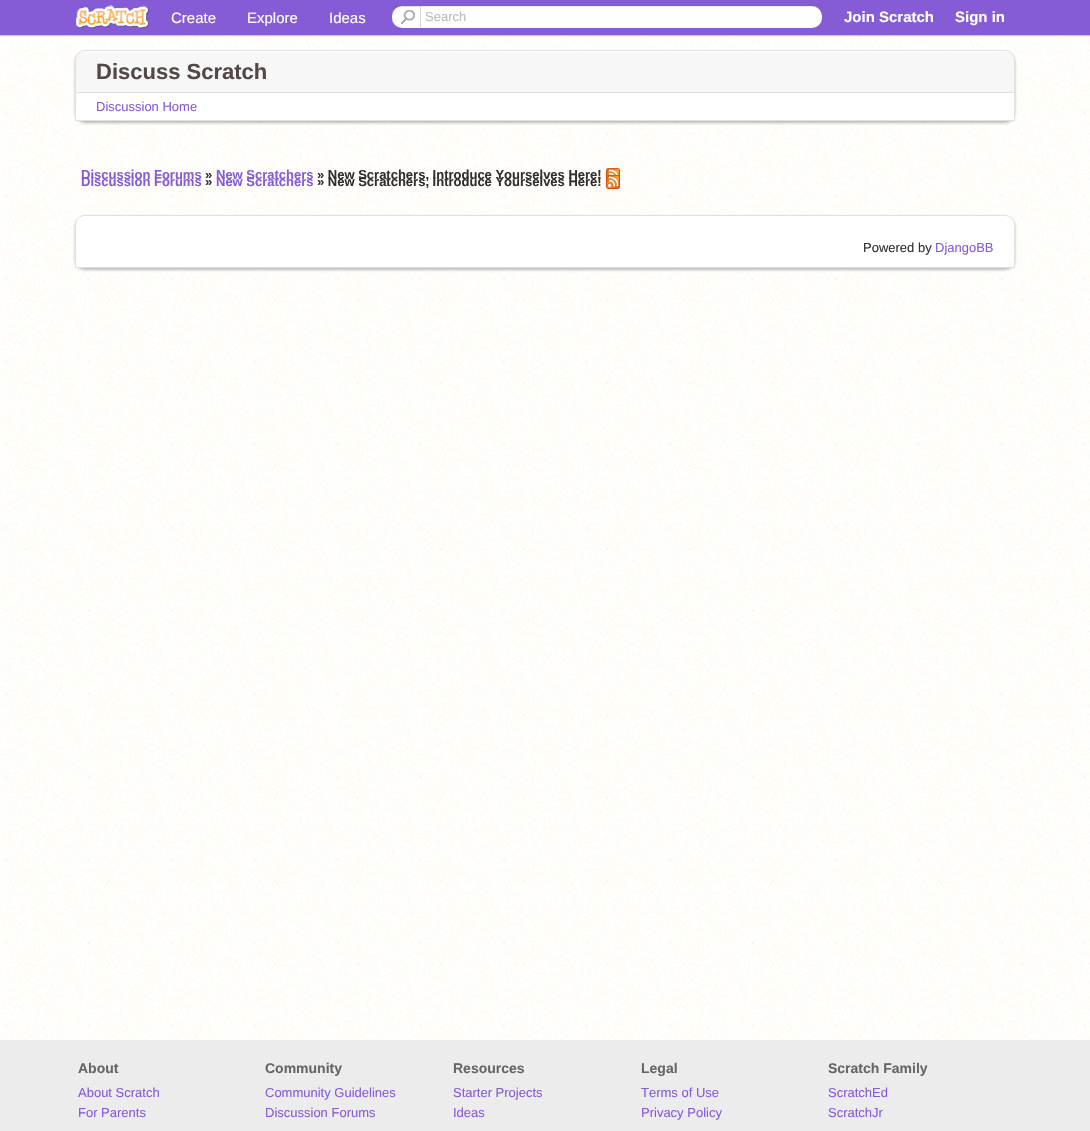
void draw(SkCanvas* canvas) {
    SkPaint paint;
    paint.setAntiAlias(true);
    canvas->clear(0xFFFFFFFF);
    canvas->drawImageRect(SkImages::DeferredFromEncodedData(SkData::MakeFromFileName("img1.png")), SkRect::MakeXYWH(0, 35, 1090, 1005), SkSamplingOptions());
    paint.setColor(0xFFCCCCCC);
    paint.setMaskFilter(SkMaskFilter::MakeBlur(kNormal_SkBlurStyle, 0.5f));
    canvas->drawRect(SkRect::MakeXYWH(0, 1, 1090, 35), paint);
    paint.setMaskFilter(nullptr);
    paint.setColor(0xFF855CD6);
    canvas->drawRect(SkRect::MakeXYWH(0, 0, 1090, 35), paint);
    canvas->drawImageRect(SkImages::DeferredFromEncodedData(SkData::MakeFromFileName("img2.png")), SkRect::MakeXYWH(76, 5, 74, 25), SkSamplingOptions());
    SkFont font1(fontMgr->matchFamilyStyle("Liberation Sans", SkFontStyle::Normal()), 15);
    font1.setSubpixel(true);
    paint.setColor(0xFFFFFFFF);
    canvas->drawString("Create", 171, 23, font1, paint);
    canvas->drawString("Explore", 247, 23, font1, paint);
    canvas->drawString("Ideas", 329, 23, font1, paint);
    canvas->drawRoundRect(SkRect::MakeXYWH(392, 6, 430, 22), 10, 10, paint);
    paint.setColor(0x12000000);
    canvas->drawPath(SkPathBuilder().moveTo(402, 7).lineTo(812, 7).cubicTo(818, 7, 822, 11, 822, 17).lineTo(822, 16).cubicTo(822, 10, 818, 6, 812, 6).lineTo(402, 6).cubicTo(396, 6, 392, 10, 392, 16).lineTo(392, 17).cubicTo(392, 11, 396, 7, 402, 7).close().detach(), paint);
    canvas->drawImageRect(SkImages::DeferredFromEncodedData(SkData::MakeFromFileName("img3.png")), SkRect::MakeXYWH(401, 10, 14, 14), SkSamplingOptions());
    paint.setColor(0x0F000000);
    canvas->drawRect(SkRect::MakeXYWH(392, 6, 28, 1), paint);
    paint.setColor(0xCCCCCCCC);
    canvas->drawRect(SkRect::MakeXYWH(420, 6, 1, 22), paint);
    SkFont font2(fontMgr->matchFamilyStyle("Liberation Sans", SkFontStyle::Normal()), 13);
    font2.setSubpixel(true);
    paint.setColor(0xFFBBBBBB);
    canvas->drawString("Search", 425, 21, font2, paint);
    SkFont font3(fontMgr->matchFamilyStyle("Liberation Sans", SkFontStyle::Bold()), 15);
    font3.setSubpixel(true);
    paint.setColor(0xFFFFFFFF);
    canvas->drawString("Join Scratch", 844, 22, font3, paint);
    canvas->drawString("Sign in", 955, 22, font3, paint);
    paint.setColor(0x4D221919);
    paint.setMaskFilter(SkMaskFilter::MakeBlur(kNormal_SkBlurStyle, 1.5f));
    canvas->drawRoundRect(SkRect::MakeXYWH(75, 52, 940, 71), 10, 10, paint);
    paint.setMaskFilter(nullptr);
    paint.setColor(0xFFF7F7F7);
    canvas->drawPath(SkPathBuilder().moveTo(85, 50.5f).lineTo(1005, 50.5f).cubicTo(1010, 50.5f, 1014.5f, 55, 1014.5f, 60).lineTo(1014.5f, 120.5f).lineTo(75.5f, 120.5f).lineTo(75.5f, 60).cubicTo(75.5f, 55, 80, 50.5f, 85, 50.5f).close().detach(), paint);
    paint.setStyle(SkPaint::kStroke_Style);
    paint.setStrokeWidth(1);
    paint.setColor(0xFFE0E0E0);
    canvas->drawPath(SkPathBuilder().moveTo(85, 50.5f).lineTo(1005, 50.5f).cubicTo(1010, 50.5f, 1014.5f, 55, 1014.5f, 60).lineTo(1014.5f, 120.5f).lineTo(75.5f, 120.5f).lineTo(75.5f, 60).cubicTo(75.5f, 55, 80, 50.5f, 85, 50.5f).close().detach(), paint);
    canvas->save();
    canvas->clipPath(SkPathBuilder().moveTo(85, 51).lineTo(1005, 51).cubicTo(1010, 51, 1014, 55, 1014, 60).lineTo(1014, 120).lineTo(76, 120).lineTo(76, 60).cubicTo(76, 55, 80, 51, 85, 51).close().detach(), true);
    paint.setStyle(SkPaint::kFill_Style);
    paint.setColor(0xFFFFFFFF);
    canvas->drawRect(SkRect::MakeXYWH(81, 51, 928, 1), paint);
    canvas->restore();
    SkFont font4(fontMgr->matchFamilyStyle("Liberation Sans", SkFontStyle::Bold()), 22);
    font4.setSubpixel(true);
    paint.setColor(0xFF554747);
    canvas->drawString("Discuss Scratch", 96, 79, font4, paint);
    paint.setColor(0xFFFFFFFF);
    canvas->drawRect(SkRect::MakeXYWH(76, 93, 938, 27), paint);
    paint.setColor(0xFFE0E0E0);
    canvas->drawRect(SkRect::MakeXYWH(76, 92, 938, 1), paint);
    paint.setColor(0xFF855CD6);
    canvas->drawString("Discussion Home", 96, 111, font2, paint);
    SkFont font5(fontMgr->matchFamilyStyle("Liberation Sans", SkFontStyle::Bold()), 13);
    font5.setSubpixel(true);
    canvas->drawString("Discussion Forums", 81, 179, font5, paint);
    paint.setColor(0xFF322F31);
    canvas->drawString("»", 205, 179, font5, paint);
    paint.setColor(0xFF855CD6);
    canvas->drawString("New Scratchers", 216, 179, font5, paint);
    paint.setColor(0xFF322F31);
    canvas->drawString("» New Scratchers, Introduce Yourselves Here!", 317, 179, font5, paint);
    canvas->drawImageRect(SkImages::DeferredFromEncodedData(SkData::MakeFromFileName("img4.png")), SkRect::MakeXYWH(606, 168, 14, 14), SkSamplingOptions());
    paint.setColor(0xFF855CD6);
    canvas->drawString("Discussion Forums", 81, 186, font5, paint);
    paint.setColor(0xFF322F31);
    canvas->drawString("»", 205, 186, font5, paint);
    paint.setColor(0xFF855CD6);
    canvas->drawString("New Scratchers", 216, 186, font5, paint);
    paint.setColor(0xFF322F31);
    canvas->drawString("» New Scratchers, Introduce Yourselves Here!", 317, 186, font5, paint);
    canvas->drawImageRect(SkImages::DeferredFromEncodedData(SkData::MakeFromFileName("img5.png")), SkRect::MakeXYWH(606, 175, 14, 14), SkSamplingOptions());
    paint.setColor(0x4D221919);
    paint.setMaskFilter(SkMaskFilter::MakeBlur(kNormal_SkBlurStyle, 1.5f));
    canvas->drawRoundRect(SkRect::MakeXYWH(75, 217, 940, 53), 10, 10, paint);
    paint.setMaskFilter(nullptr);
    paint.setStyle(SkPaint::kStroke_Style);
    paint.setColor(0xFFE0E0E0);
    canvas->drawPath(SkPathBuilder().moveTo(85, 215.5f).lineTo(1005, 215.5f).cubicTo(1010, 215.5f, 1014.5f, 220, 1014.5f, 225).lineTo(1014.5f, 267.5f).lineTo(75.5f, 267.5f).lineTo(75.5f, 225).cubicTo(75.5f, 220, 80, 215.5f, 85, 215.5f).close().detach(), paint);
    paint.setStyle(SkPaint::kFill_Style);
    paint.setColor(0xFFFFFFFF);
    canvas->drawPath(SkPathBuilder().moveTo(85, 216).lineTo(1005, 216).cubicTo(1010, 216, 1014, 220, 1014, 225).lineTo(1014, 267).lineTo(76, 267).lineTo(76, 225).cubicTo(76, 220, 80, 216, 85, 216).close().detach(), paint);
    paint.setColor(0xFF322F31);
    canvas->drawString("Powered by", 863, 252, font2, paint);
    paint.setColor(0xFF855CD6);
    canvas->drawString("DjangoBB", 935, 252, font2, paint);
    paint.setColor(0xFFECECEC);
    canvas->drawRect(SkRect::MakeXYWH(0, 1040, 1090, 91), paint);
    SkFont font6(fontMgr->matchFamilyStyle("Liberation Sans", SkFontStyle::Bold()), 14);
    font6.setSubpixel(true);
    paint.setColor(0xFF666666);
    canvas->drawString("About", 78, 1073, font6, paint);
    paint.setColor(0xFF855CD6);
    canvas->drawString("About Scratch", 78, 1097, font2, paint);
    canvas->drawString("For Parents", 78, 1117, font2, paint);
    paint.setColor(0xFF666666);
    canvas->drawString("Community", 265, 1073, font6, paint);
    paint.setColor(0xFF855CD6);
    canvas->drawString("Community Guidelines", 265, 1097, font2, paint);
    canvas->drawString("Discussion Forums", 265, 1117, font2, paint);
    paint.setColor(0xFF666666);
    canvas->drawString("Resources", 453, 1073, font6, paint);
    paint.setColor(0xFF855CD6);
    canvas->drawString("Starter Projects", 453, 1097, font2, paint);
    canvas->drawString("Ideas", 453, 1117, font2, paint);
    paint.setColor(0xFF666666);
    canvas->drawString("Legal", 641, 1073, font6, paint);
    paint.setColor(0xFF855CD6);
    canvas->drawString("Terms of Use", 641, 1097, font2, paint);
    canvas->drawString("Privacy Policy", 641, 1117, font2, paint);
    paint.setColor(0xFF666666);
    canvas->drawString("Scratch Family", 828, 1073, font6, paint);
    paint.setColor(0xFF855CD6);
    canvas->drawString("ScratchEd", 828, 1097, font2, paint);
    canvas->drawString("ScratchJr", 828, 1117, font2, paint);
}
